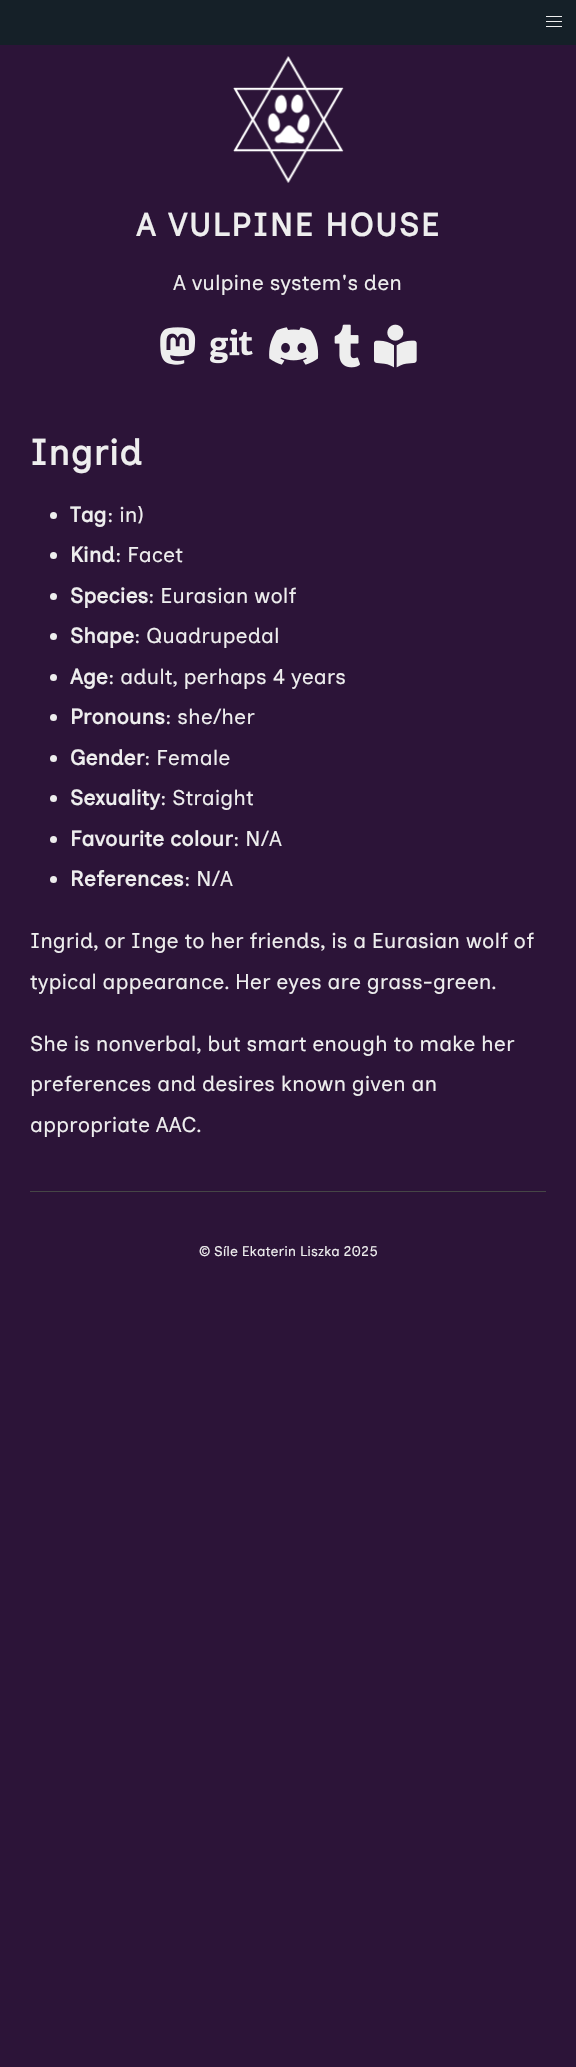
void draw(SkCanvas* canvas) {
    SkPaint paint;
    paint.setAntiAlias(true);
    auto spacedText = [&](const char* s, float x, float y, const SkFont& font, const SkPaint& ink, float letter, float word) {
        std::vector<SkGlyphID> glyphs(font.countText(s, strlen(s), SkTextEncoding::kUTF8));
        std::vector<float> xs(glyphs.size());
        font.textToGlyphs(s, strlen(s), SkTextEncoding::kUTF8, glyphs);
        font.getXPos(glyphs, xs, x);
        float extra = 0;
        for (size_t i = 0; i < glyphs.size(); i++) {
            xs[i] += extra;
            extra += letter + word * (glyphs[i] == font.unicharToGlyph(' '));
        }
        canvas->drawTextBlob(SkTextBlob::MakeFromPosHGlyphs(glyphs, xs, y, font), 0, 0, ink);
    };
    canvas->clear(0xFF2C1438);
    canvas->drawImageRect(SkImages::DeferredFromEncodedData(SkData::MakeFromFileName("img1.png")), SkRect::MakeXYWH(233, 56, 111, 127), SkSamplingOptions());
    SkFont font1(fontMgr->matchFamilyStyle("Inclusive Sans", SkFontStyle::Bold()), 32);
    font1.setSubpixel(true);
    paint.setColor(0xFFEEEEEE);
    spacedText("A VULPINE HOUSE", 136, 236, font1, paint, 2, 0);
    SkFont font2(fontMgr->matchFamilyStyle("Inclusive Sans", SkFontStyle::Normal()), 21.3f);
    font2.setSubpixel(true);
    canvas->drawString("A vulpine system's den", 173, 290, font2, paint);
    canvas->drawImageRect(SkImages::DeferredFromEncodedData(SkData::MakeFromFileName("img2.png")), SkRect::MakeXYWH(160, 327, 36, 38), SkSamplingOptions());
    canvas->drawImageRect(SkImages::DeferredFromEncodedData(SkData::MakeFromFileName("img3.png")), SkRect::MakeXYWH(210, 328, 43, 36), SkSamplingOptions());
    canvas->drawImageRect(SkImages::DeferredFromEncodedData(SkData::MakeFromFileName("img4.png")), SkRect::MakeXYWH(269, 327, 50, 38), SkSamplingOptions());
    canvas->drawImageRect(SkImages::DeferredFromEncodedData(SkData::MakeFromFileName("img5.png")), SkRect::MakeXYWH(334, 324, 26, 44), SkSamplingOptions());
    canvas->drawImageRect(SkImages::DeferredFromEncodedData(SkData::MakeFromFileName("img6.png")), SkRect::MakeXYWH(374, 324, 43, 44), SkSamplingOptions());
    paint.setColor(0xFF152028);
    canvas->drawRect(SkRect::MakeXYWH(0, 0, 576, 45), paint);
    paint.setColor(0xFFEEEEEE);
    canvas->drawRect(SkRect::MakeXYWH(546, 16, 16, 1), paint);
    canvas->drawRect(SkRect::MakeXYWH(546, 21, 16, 1), paint);
    canvas->drawRect(SkRect::MakeXYWH(546, 26, 16, 1), paint);
    SkFont font3(fontMgr->matchFamilyStyle("Inclusive Sans", SkFontStyle::Bold()), 36);
    font3.setSubpixel(true);
    spacedText("Ingrid", 30, 465, font3, paint, 1, 0);
    canvas->drawCircle(53.5f, 515.5f, 3.5f, paint);
    SkFont font4(fontMgr->matchFamilyStyle("Inclusive Sans", SkFontStyle::Bold()), 21.3f);
    font4.setSubpixel(true);
    canvas->drawString("Tag", 70, 522, font4, paint);
    canvas->drawString(": in)", 107, 522, font2, paint);
    canvas->drawCircle(53.5f, 555.5f, 3.5f, paint);
    canvas->drawString("Kind", 70, 562, font4, paint);
    canvas->drawString(": Facet", 115, 562, font2, paint);
    canvas->drawCircle(53.5f, 596.5f, 3.5f, paint);
    canvas->drawString("Species", 70, 603, font4, paint);
    canvas->drawString(": Eurasian wolf", 148, 603, font2, paint);
    canvas->drawCircle(53.5f, 636.5f, 3.5f, paint);
    canvas->drawString("Shape", 70, 643, font4, paint);
    canvas->drawString(": Quadrupedal", 134, 643, font2, paint);
    canvas->drawCircle(53.5f, 677.5f, 3.5f, paint);
    canvas->drawString("Age", 70, 684, font4, paint);
    canvas->drawString(": adult, perhaps 4 years", 108, 684, font2, paint);
    canvas->drawCircle(53.5f, 717.5f, 3.5f, paint);
    canvas->drawString("Pronouns", 70, 724, font4, paint);
    canvas->drawString(": she/her", 165, 724, font2, paint);
    canvas->drawCircle(53.5f, 758.5f, 3.5f, paint);
    canvas->drawString("Gender", 70, 765, font4, paint);
    canvas->drawString(": Female", 144, 765, font2, paint);
    canvas->drawCircle(53.5f, 798.5f, 3.5f, paint);
    canvas->drawString("Sexuality", 70, 805, font4, paint);
    canvas->drawString(": Straight", 160, 805, font2, paint);
    canvas->drawCircle(53.5f, 839.5f, 3.5f, paint);
    canvas->drawString("Favourite colour", 70, 846, font4, paint);
    canvas->drawString(": N/A", 233, 846, font2, paint);
    canvas->drawCircle(53.5f, 879.5f, 3.5f, paint);
    canvas->drawString("References", 70, 886, font4, paint);
    canvas->drawString(": N/A", 184, 886, font2, paint);
    canvas->drawString("Ingrid, or Inge to her friends, is a Eurasian wolf of", 30, 948, font2, paint);
    canvas->drawString("typical appearance. Her eyes are grass-green.", 30, 989, font2, paint);
    canvas->drawString("She is nonverbal, but smart enough to make her", 30, 1051, font2, paint);
    canvas->drawString("preferences and desires known given an", 30, 1091, font2, paint);
    canvas->drawString("appropriate AAC.", 30, 1132, font2, paint);
    paint.setColor(0xFF464646);
    canvas->drawRect(SkRect::MakeXYWH(30, 1191, 516, 1), paint);
    SkFont font5(fontMgr->matchFamilyStyle("Inclusive Sans", SkFontStyle::Normal()), 14);
    font5.setSubpixel(true);
    paint.setColor(0xFFEEEEEE);
    canvas->drawString("© Síle Ekaterin Liszka 2025", 199, 1256, font5, paint);
}
